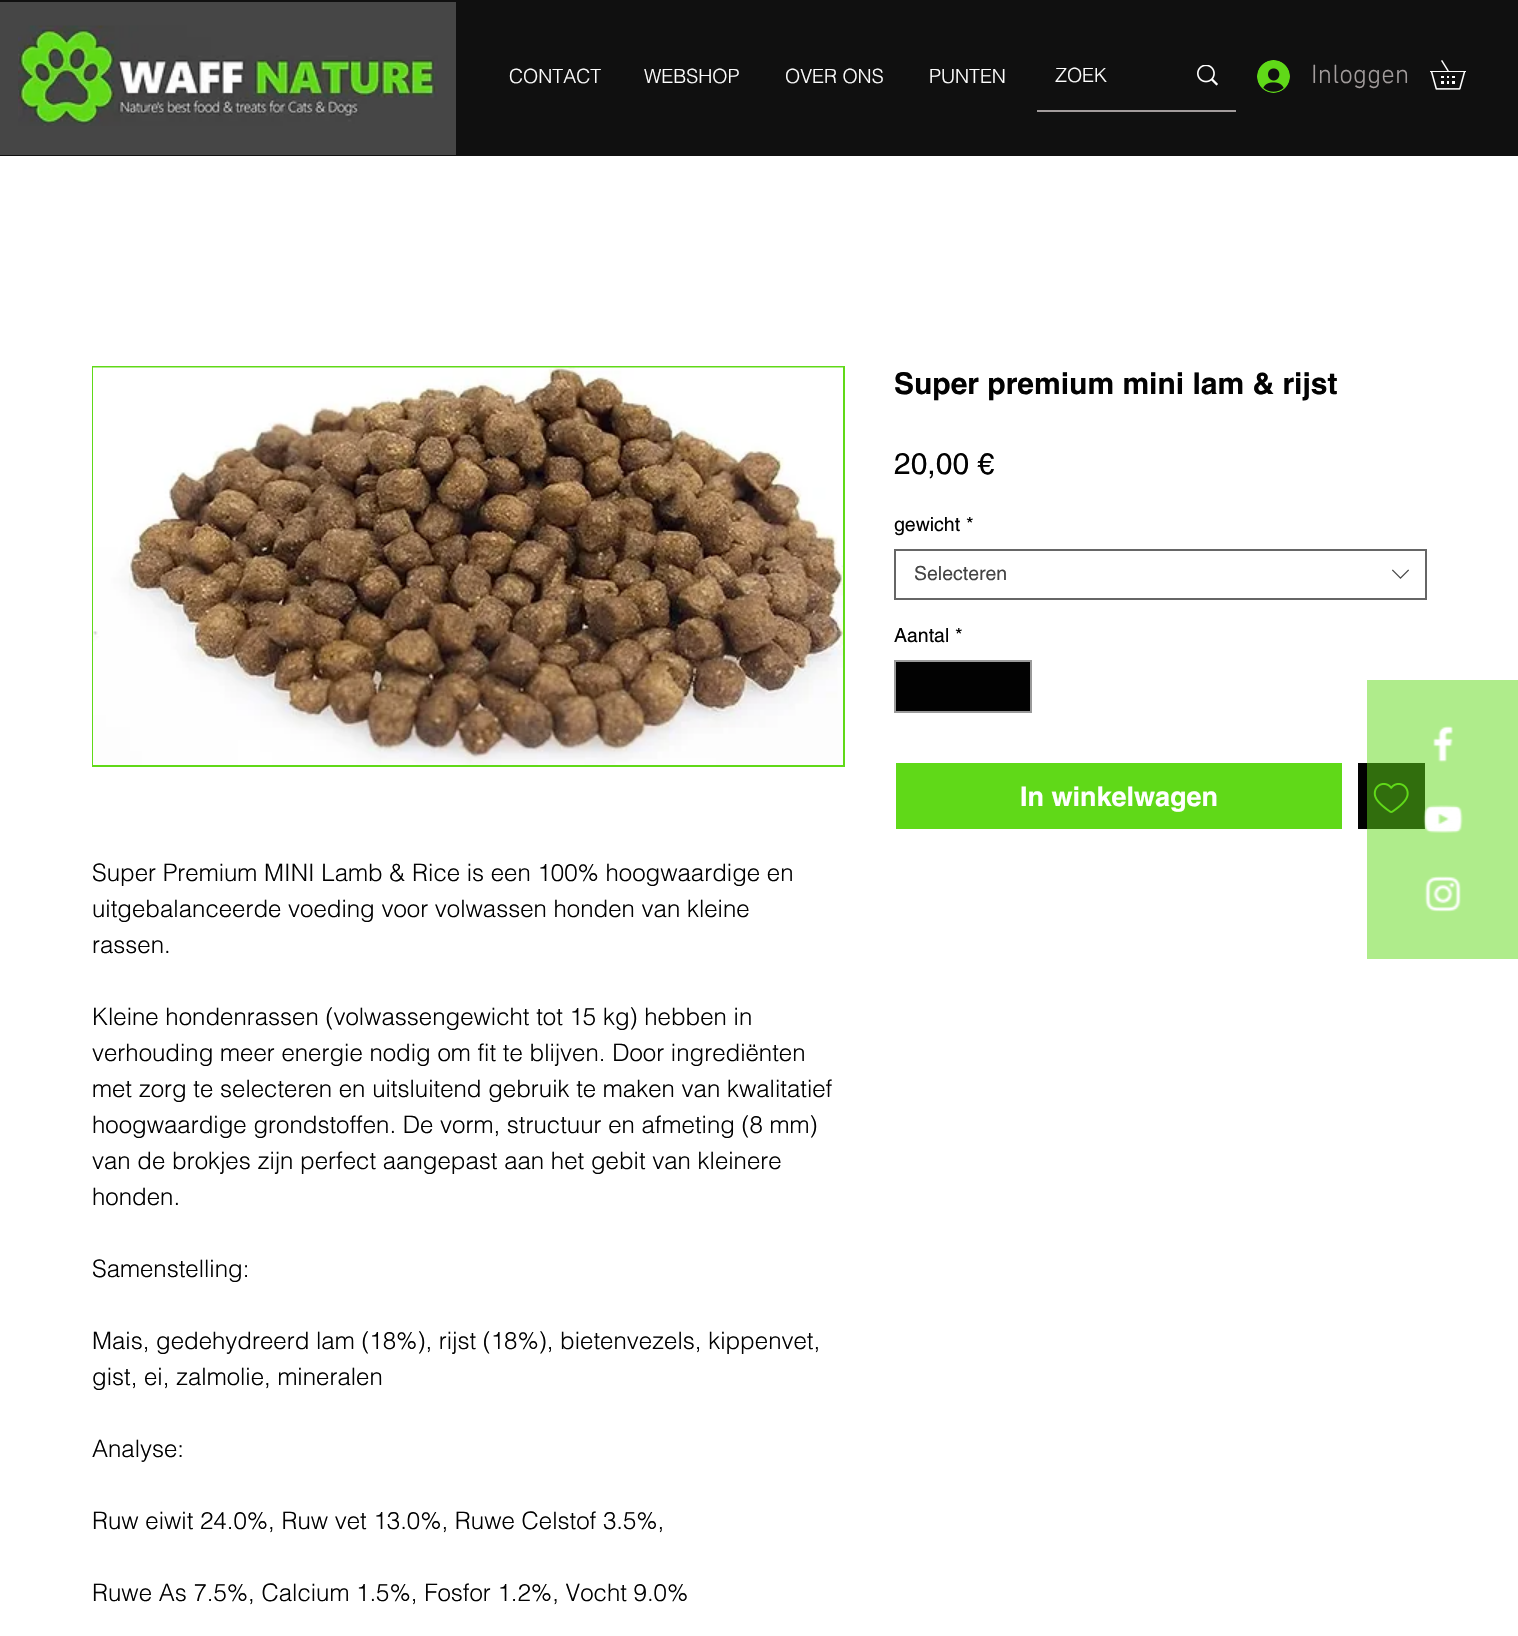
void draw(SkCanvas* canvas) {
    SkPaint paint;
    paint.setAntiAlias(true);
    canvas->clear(0xFFFFFFFF);
    paint.setColor(0xFF101010);
    canvas->drawRect(SkRect::MakeXYWH(0, 0, 1518, 156), paint);
    paint.setColor(0xFF464646);
    canvas->drawRect(SkRect::MakeXYWH(0, 2, 456, 153), paint);
    canvas->drawImageRect(SkImages::DeferredFromEncodedData(SkData::MakeFromFileName("img1.png")), SkRect::MakeXYWH(18, 25, 420, 101), SkSamplingOptions());
    SkFont font1(fontMgr->matchFamilyStyle("helvetica", SkFontStyle(300, SkFontStyle::kNormal_Width, SkFontStyle::kUpright_Slant)), 19.5f);
    font1.setSubpixel(true);
    paint.setColor(0xFFFFFFFF);
    canvas->drawString("CONTACT", 509, 83, font1, paint);
    canvas->drawString("WEBSHOP", 644, 83, font1, paint);
    canvas->drawString("OVER ONS", 785, 83, font1, paint);
    canvas->drawString("PUNTEN", 929, 83, font1, paint);
    paint.setColor(0xFFA29C9C);
    canvas->drawRect(SkRect::MakeXYWH(1037, 110, 199, 2), paint);
    paint.setColor(0xFFFFFFFF);
    canvas->drawString("ZOEK", 1055, 82, font1, paint);
    canvas->drawImageRect(SkImages::DeferredFromEncodedData(SkData::MakeFromFileName("img2.png")), SkRect::MakeXYWH(1197, 65, 21, 21), SkSamplingOptions());
    canvas->drawImageRect(SkImages::DeferredFromEncodedData(SkData::MakeFromFileName("img3.png")), SkRect::MakeXYWH(1257, 60, 33, 33), SkSamplingOptions());
    SkFont font2(fontMgr->matchFamilyStyle("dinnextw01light", SkFontStyle(300, SkFontStyle::kNormal_Width, SkFontStyle::kUpright_Slant)), 27);
    font2.setSubpixel(true);
    paint.setColor(0xFFA29C9C);
    canvas->drawString("Inloggen", 1311, 83, font2, paint);
    canvas->drawImageRect(SkImages::DeferredFromEncodedData(SkData::MakeFromFileName("img4.png")), SkRect::MakeXYWH(1430, 60, 36, 30), SkSamplingOptions());
    SkFont font3(fontMgr->matchFamilyStyle("helvetica", SkFontStyle::Bold()), 30);
    font3.setSubpixel(true);
    paint.setColor(0xFF020202);
    canvas->drawString("Super premium mini lam & rijst", 894, 394, font3, paint);
    SkFont font4(fontMgr->matchFamilyStyle("helvetica", SkFontStyle::Normal()), 30);
    font4.setSubpixel(true);
    canvas->drawString("20,00 €", 894, 474, font4, paint);
    SkFont font5(fontMgr->matchFamilyStyle("helvetica", SkFontStyle::Normal()), 19.5f);
    font5.setSubpixel(true);
    canvas->drawString("gewicht", 894, 531, font5, paint);
    canvas->drawString("*", 966, 531, font5, paint);
    paint.setStyle(SkPaint::kStroke_Style);
    paint.setStrokeWidth(2);
    paint.setColor(0xFF666666);
    canvas->drawRect(SkRect::MakeXYWH(895, 550, 531, 49), paint);
    paint.setStyle(SkPaint::kFill_Style);
    paint.setColor(0xFF444444);
    canvas->drawString("Selecteren", 914, 580, font5, paint);
    canvas->drawImageRect(SkImages::DeferredFromEncodedData(SkData::MakeFromFileName("img5.png")), SkRect::MakeXYWH(1392, 569, 17, 10), SkSamplingOptions());
    paint.setColor(0xFF020202);
    canvas->drawString("Aantal", 894, 642, font5, paint);
    canvas->drawString("*", 955, 642, font5, paint);
    canvas->drawRect(SkRect::MakeXYWH(895, 661, 136, 51), paint);
    paint.setStyle(SkPaint::kStroke_Style);
    paint.setColor(0xFF9A9A9A);
    canvas->drawRect(SkRect::MakeXYWH(895, 661, 136, 51), paint);
    paint.setStyle(SkPaint::kFill_Style);
    paint.setColor(0xFF60D918);
    canvas->drawRect(SkRect::MakeXYWH(896, 763, 446, 66), paint);
    SkFont font6(fontMgr->matchFamilyStyle("helvetica", SkFontStyle::Bold()), 27);
    font6.setSubpixel(true);
    paint.setColor(0xFFFFFFFF);
    canvas->drawString("In winkelwagen", 1020, 806, font6, paint);
    paint.setColor(0xFF020202);
    canvas->drawRect(SkRect::MakeXYWH(1358, 763, 67, 66), paint);
    canvas->drawImageRect(SkImages::DeferredFromEncodedData(SkData::MakeFromFileName("img6.png")), SkRect::MakeXYWH(1373, 783, 36, 30), SkSamplingOptions());
    paint.setStyle(SkPaint::kStroke_Style);
    paint.setColor(0xFF60D918);
    canvas->drawRect(SkRect::MakeXYWH(93, 367, 751, 399), paint);
    canvas->drawImageRect(SkImages::DeferredFromEncodedData(SkData::MakeFromFileName("img7.png")), SkRect::MakeXYWH(93, 367, 750, 398), SkSamplingOptions());
    SkFont font7(fontMgr->matchFamilyStyle("helvetica", SkFontStyle(300, SkFontStyle::kNormal_Width, SkFontStyle::kUpright_Slant)), 24);
    font7.setSubpixel(true);
    paint.setStyle(SkPaint::kFill_Style);
    paint.setColor(0xFF020202);
    canvas->drawString("Super Premium MINI Lamb & Rice is een 100% hoogwaardige en", 92, 881, font7, paint);
    canvas->drawString("uitgebalanceerde voeding voor volwassen honden van kleine", 92, 917, font7, paint);
    canvas->drawString("rassen.", 92, 953, font7, paint);
    canvas->drawString("Kleine hondenrassen (volwassengewicht tot 15 kg) hebben in", 92, 1025, font7, paint);
    canvas->drawString("verhouding meer energie nodig om fit te blijven. Door ingrediënten", 92, 1061, font7, paint);
    canvas->drawString("met zorg te selecteren en uitsluitend gebruik te maken van kwalitatief", 92, 1097, font7, paint);
    canvas->drawString("hoogwaardige grondstoffen. De vorm, structuur en afmeting (8 mm)", 92, 1133, font7, paint);
    canvas->drawString("van de brokjes zijn perfect aangepast aan het gebit van kleinere", 92, 1169, font7, paint);
    canvas->drawString("honden.", 92, 1205, font7, paint);
    canvas->drawString("Samenstelling:", 92, 1277, font7, paint);
    canvas->drawString("Mais, gedehydreerd lam (18%), rijst (18%), bietenvezels, kippenvet,", 92, 1349, font7, paint);
    canvas->drawString("gist, ei, zalmolie, mineralen", 92, 1385, font7, paint);
    canvas->drawString("Analyse:", 92, 1457, font7, paint);
    canvas->drawString("Ruw eiwit 24.0%, Ruw vet 13.0%, Ruwe Celstof 3.5%,", 92, 1529, font7, paint);
    canvas->drawString("Ruwe As 7.5%, Calcium 1.5%, Fosfor 1.2%, Vocht 9.0%", 92, 1601, font7, paint);
    paint.setColor(0x8060D918);
    canvas->drawRect(SkRect::MakeXYWH(1367, 680, 151, 279), paint);
    canvas->drawImageRect(SkImages::DeferredFromEncodedData(SkData::MakeFromFileName("img8.png")), SkRect::MakeXYWH(1433, 726, 20, 37), SkSamplingOptions());
    canvas->drawImageRect(SkImages::DeferredFromEncodedData(SkData::MakeFromFileName("img9.png")), SkRect::MakeXYWH(1423, 805, 40, 28), SkSamplingOptions());
    canvas->drawImageRect(SkImages::DeferredFromEncodedData(SkData::MakeFromFileName("img10.png")), SkRect::MakeXYWH(1424, 876, 37, 36), SkSamplingOptions());
}
